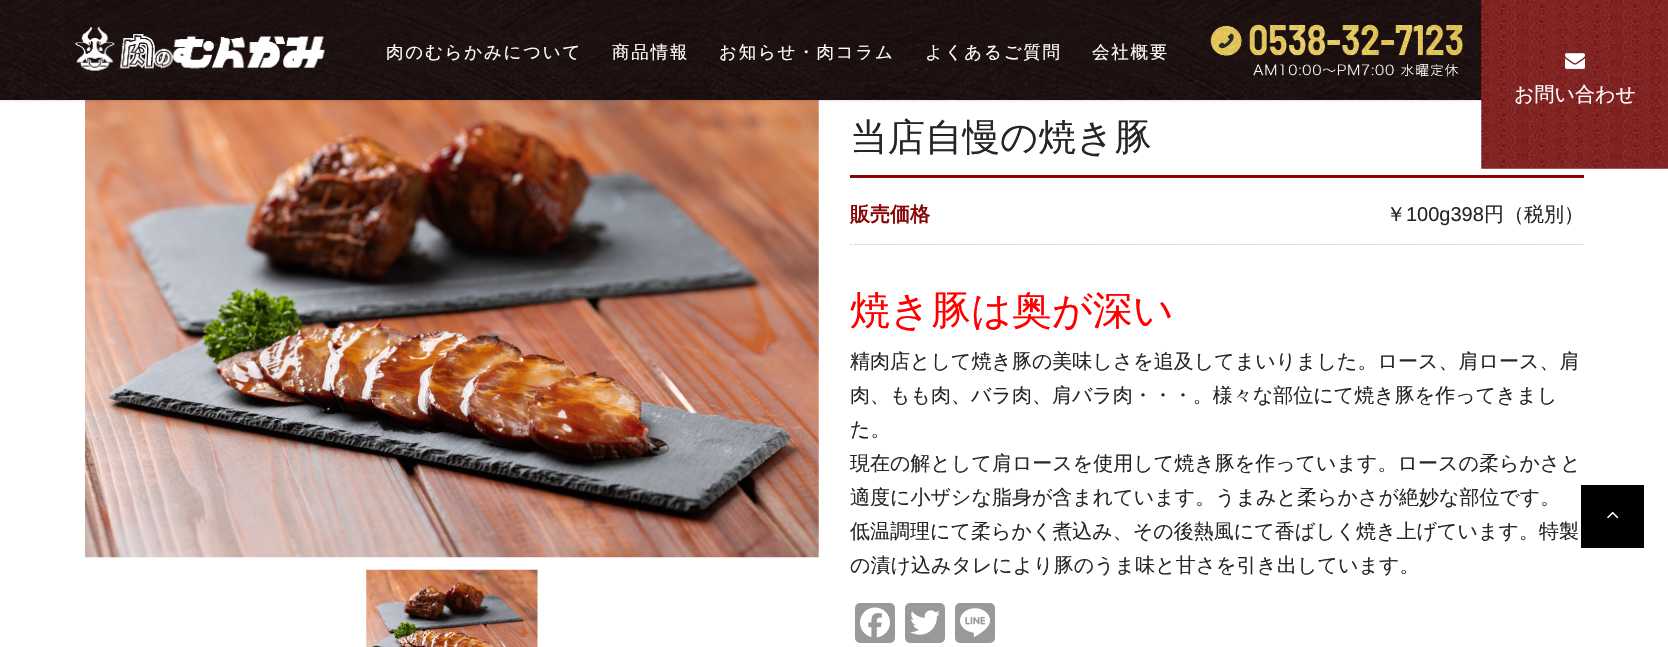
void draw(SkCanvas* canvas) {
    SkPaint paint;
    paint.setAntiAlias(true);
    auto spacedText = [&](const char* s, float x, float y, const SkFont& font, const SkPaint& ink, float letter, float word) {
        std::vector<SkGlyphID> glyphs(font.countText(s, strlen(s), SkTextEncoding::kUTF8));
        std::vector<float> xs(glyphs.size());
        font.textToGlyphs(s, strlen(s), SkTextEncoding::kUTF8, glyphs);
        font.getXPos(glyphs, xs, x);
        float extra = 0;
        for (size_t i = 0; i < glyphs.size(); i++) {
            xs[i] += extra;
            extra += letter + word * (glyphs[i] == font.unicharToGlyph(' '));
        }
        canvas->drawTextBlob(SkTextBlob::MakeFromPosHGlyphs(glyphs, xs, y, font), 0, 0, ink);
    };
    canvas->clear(0xFFFFFFFF);
    canvas->drawImageRect(SkImages::DeferredFromEncodedData(SkData::MakeFromFileName("img6.png")), SkRect::MakeXYWH(85, 100, 734, 458), SkSamplingOptions());
    paint.setColor(0x1A000000);
    paint.setMaskFilter(SkMaskFilter::MakeBlur(kNormal_SkBlurStyle, 1));
    canvas->drawRect(SkRect::MakeXYWH(0, 1, 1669, 100), paint);
    paint.setMaskFilter(nullptr);
    canvas->drawImageRect(SkImages::DeferredFromEncodedData(SkData::MakeFromFileName("img1.png")), SkRect::MakeXYWH(0, 0, 1482, 100), SkSamplingOptions());
    canvas->drawImageRect(SkImages::DeferredFromEncodedData(SkData::MakeFromFileName("img2.png")), SkRect::MakeXYWH(75, 26, 250, 45), SkSamplingOptions());
    SkFont font1(fontMgr->matchFamilyStyle("WenQuanYi Zen Hei", SkFontStyle(500, SkFontStyle::kNormal_Width, SkFontStyle::kUpright_Slant)), 17.5f);
    font1.setSubpixel(true);
    paint.setColor(0xFFFFFFFF);
    spacedText("肉のむらかみについて", 386, 58, font1, paint, 1.75f, 0);
    spacedText("商品情報", 612, 58, font1, paint, 1.75f, 0);
    spacedText("お知らせ・肉コラム", 719, 58, font1, paint, 1.75f, 0);
    spacedText("よくあるご質問", 925, 58, font1, paint, 1.75f, 0);
    spacedText("会社概要", 1092, 58, font1, paint, 1.75f, 0);
    canvas->drawImageRect(SkImages::DeferredFromEncodedData(SkData::MakeFromFileName("img3.png")), SkRect::MakeXYWH(1210, 24, 253, 53), SkSamplingOptions());
    canvas->drawImageRect(SkImages::DeferredFromEncodedData(SkData::MakeFromFileName("img4.png")), SkRect::MakeXYWH(1481, 0, 187, 169), SkSamplingOptions());
    canvas->drawImageRect(SkImages::DeferredFromEncodedData(SkData::MakeFromFileName("img5.png")), SkRect::MakeXYWH(1565, 53, 20, 16), SkSamplingOptions());
    SkFont font2(fontMgr->matchFamilyStyle("WenQuanYi Zen Hei", SkFontStyle(500, SkFontStyle::kNormal_Width, SkFontStyle::kUpright_Slant)), 20);
    font2.setSubpixel(true);
    canvas->drawString("お問い合わせ", 1514, 101, font2, paint);
    canvas->drawImageRect(SkImages::DeferredFromEncodedData(SkData::MakeFromFileName("img7.png")), SkRect::MakeXYWH(366, 569, 172, 78), SkSamplingOptions());
    paint.setColor(0xFF890404);
    canvas->drawRect(SkRect::MakeXYWH(850, 175, 734, 3), paint);
    SkFont font3(fontMgr->matchFamilyStyle("WenQuanYi Zen Hei", SkFontStyle(500, SkFontStyle::kNormal_Width, SkFontStyle::kUpright_Slant)), 37.5f);
    font3.setSubpixel(true);
    paint.setColor(0xFF262626);
    canvas->drawString("当店自慢の焼き豚", 850, 150, font3, paint);
    paint.setStyle(SkPaint::kStroke_Style);
    paint.setStrokeWidth(1.2f);
    paint.setColor(0xFFC4C4C4);
    paint.setPathEffect(SkDashPathEffect::Make({{1.25f, 1.25f}}, 0));
    canvas->drawPath(SkPathBuilder().moveTo(850, 244.5f).lineTo(1584, 244.5f).detach(), paint);
    paint.setPathEffect(nullptr);
    SkFont font4(fontMgr->matchFamilyStyle("WenQuanYi Zen Hei", SkFontStyle::Bold()), 20);
    font4.setSubpixel(true);
    paint.setStyle(SkPaint::kFill_Style);
    paint.setColor(0xFF890404);
    canvas->drawString("販売価格", 850, 221, font4, paint);
    paint.setColor(0xFF262626);
    canvas->drawString("￥", 1386, 221, font2, paint);
    SkFont font5(fontMgr->matchFamilyStyle("Liberation Sans", SkFontStyle::Normal()), 20);
    font5.setSubpixel(true);
    canvas->drawString("100g398", 1406, 221, font5, paint);
    canvas->drawString("円（税別）", 1484, 221, font2, paint);
    SkFont font6(fontMgr->matchFamilyStyle("WenQuanYi Zen Hei", SkFontStyle(500, SkFontStyle::kNormal_Width, SkFontStyle::kUpright_Slant)), 40);
    font6.setSubpixel(true);
    paint.setColor(0xFFFF0000);
    canvas->drawString("焼き豚は奥が深い", 850, 324, font6, paint);
    paint.setColor(0xFF262626);
    canvas->drawString("精肉店として焼き豚の美味しさを追及してまいりました。ロース、肩ロース、肩", 850, 368, font2, paint);
    canvas->drawString("肉、もも肉、バラ肉、肩バラ肉・・・。様々な部位にて焼き豚を作ってきまし", 850, 402, font2, paint);
    canvas->drawString("た。", 850, 436, font2, paint);
    canvas->drawString("現在の解として肩ロースを使用して焼き豚を作っています。ロースの柔らかさと", 850, 470, font2, paint);
    canvas->drawString("適度に小ザシな脂身が含まれています。うまみと柔らかさが絶妙な部位です。", 850, 504, font2, paint);
    canvas->drawString("低温調理にて柔らかく煮込み、その後熱風にて香ばしく焼き上げています。特製", 850, 538, font2, paint);
    canvas->drawString("の漬け込みタレにより豚のうま味と甘さを引き出しています。", 850, 572, font2, paint);
    paint.setColor(0xFF999999);
    canvas->drawRoundRect(SkRect::MakeXYWH(855, 603, 40, 40), 5, 5, paint);
    canvas->drawImageRect(SkImages::DeferredFromEncodedData(SkData::MakeFromFileName("img8.png")), SkRect::MakeXYWH(860, 607, 30, 31), SkSamplingOptions());
    canvas->drawRoundRect(SkRect::MakeXYWH(905, 603, 40, 40), 5, 5, paint);
    canvas->drawImageRect(SkImages::DeferredFromEncodedData(SkData::MakeFromFileName("img9.png")), SkRect::MakeXYWH(910, 610, 30, 25), SkSamplingOptions());
    canvas->drawRoundRect(SkRect::MakeXYWH(955, 603, 40, 40), 5, 5, paint);
    canvas->drawImageRect(SkImages::DeferredFromEncodedData(SkData::MakeFromFileName("img10.png")), SkRect::MakeXYWH(960, 608, 30, 29), SkSamplingOptions());
    paint.setColor(0xFF000000);
    canvas->drawRect(SkRect::MakeXYWH(1581, 485, 63, 63), paint);
    canvas->drawImageRect(SkImages::DeferredFromEncodedData(SkData::MakeFromFileName("img11.png")), SkRect::MakeXYWH(1607, 511, 12, 8), SkSamplingOptions());
}
